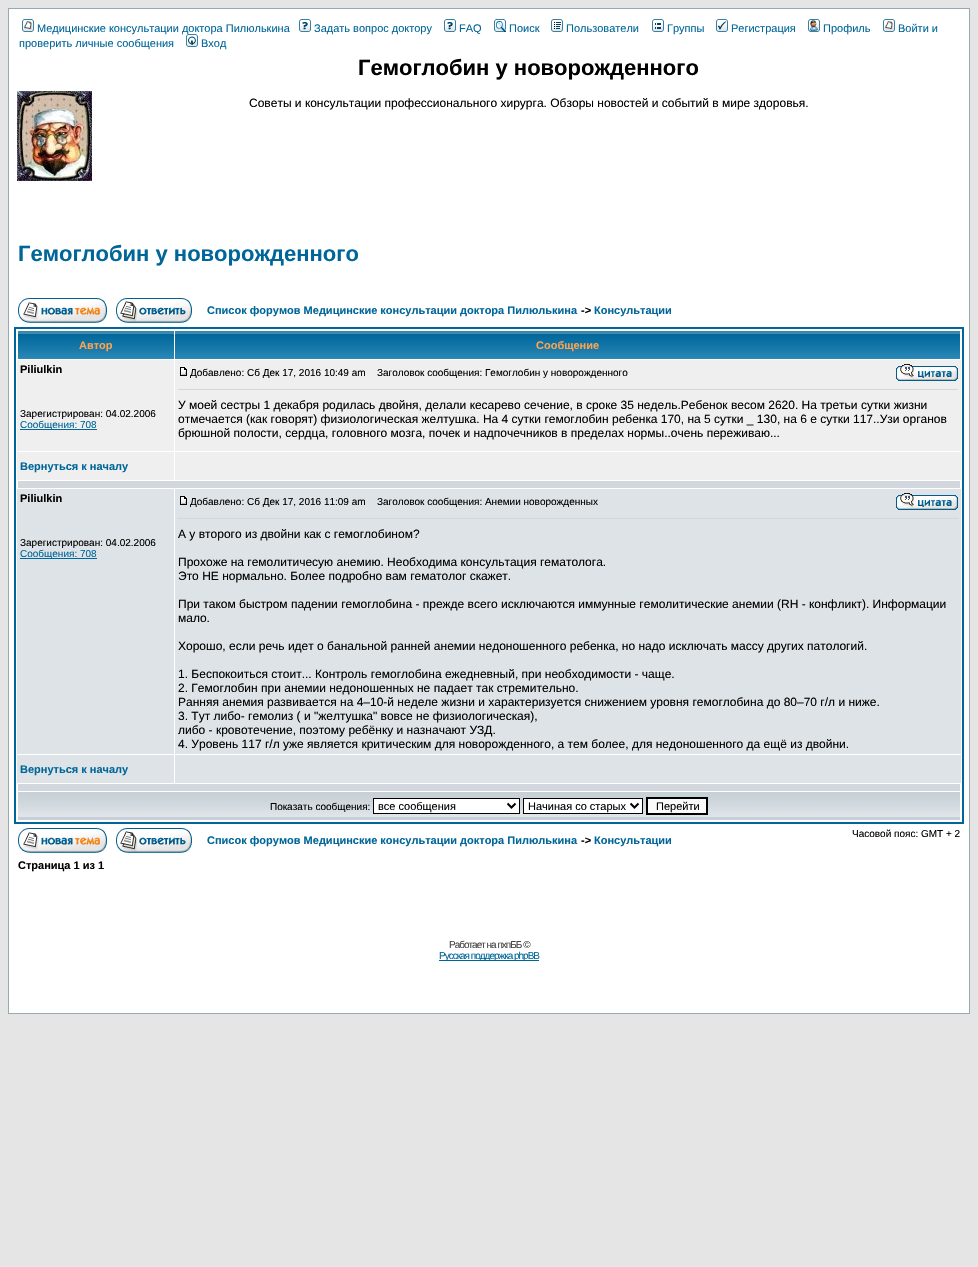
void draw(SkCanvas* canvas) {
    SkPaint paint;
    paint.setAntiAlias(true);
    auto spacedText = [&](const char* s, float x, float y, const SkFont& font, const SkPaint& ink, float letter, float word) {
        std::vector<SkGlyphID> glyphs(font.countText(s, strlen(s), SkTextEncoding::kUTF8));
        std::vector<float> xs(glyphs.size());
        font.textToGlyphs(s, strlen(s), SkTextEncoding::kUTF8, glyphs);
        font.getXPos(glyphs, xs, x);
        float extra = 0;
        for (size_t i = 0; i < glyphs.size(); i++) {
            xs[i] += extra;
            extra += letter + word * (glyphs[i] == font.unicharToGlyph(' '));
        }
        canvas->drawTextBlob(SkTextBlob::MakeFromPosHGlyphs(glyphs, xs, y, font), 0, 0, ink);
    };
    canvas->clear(0xFFE5E5E5);
    paint.setColor(0xFFFFFFFF);
    canvas->drawRect(SkRect::MakeXYWH(8.5f, 8.5f, 961, 1005), paint);
    paint.setStyle(SkPaint::kStroke_Style);
    paint.setStrokeWidth(1);
    paint.setColor(0xFF98AAB1);
    canvas->drawRect(SkRect::MakeXYWH(8.5f, 8.5f, 961, 1005), paint);
    canvas->drawImageRect(SkImages::DeferredFromEncodedData(SkData::MakeFromFileName("img1.png")), SkRect::MakeXYWH(22, 19, 12, 13), SkSamplingOptions());
    SkFont font1(fontMgr->matchFamilyStyle("Liberation Sans", SkFontStyle::Normal()), 11);
    font1.setSubpixel(true);
    paint.setStyle(SkPaint::kFill_Style);
    paint.setColor(0xFF006699);
    canvas->drawString("Медицинские консультации доктора Пилюлькина", 37, 32, font1, paint);
    canvas->drawImageRect(SkImages::DeferredFromEncodedData(SkData::MakeFromFileName("img2.png")), SkRect::MakeXYWH(299, 19, 12, 13), SkSamplingOptions());
    canvas->drawString("Задать вопрос доктору", 314, 32, font1, paint);
    canvas->drawImageRect(SkImages::DeferredFromEncodedData(SkData::MakeFromFileName("img2.png")), SkRect::MakeXYWH(444, 19, 12, 13), SkSamplingOptions());
    canvas->drawString("FAQ", 459, 32, font1, paint);
    canvas->drawImageRect(SkImages::DeferredFromEncodedData(SkData::MakeFromFileName("img3.png")), SkRect::MakeXYWH(494, 19, 12, 13), SkSamplingOptions());
    canvas->drawString("Поиск", 509, 32, font1, paint);
    canvas->drawImageRect(SkImages::DeferredFromEncodedData(SkData::MakeFromFileName("img4.png")), SkRect::MakeXYWH(551, 19, 12, 13), SkSamplingOptions());
    canvas->drawString("Пользователи", 566, 32, font1, paint);
    canvas->drawImageRect(SkImages::DeferredFromEncodedData(SkData::MakeFromFileName("img5.png")), SkRect::MakeXYWH(652, 19, 12, 13), SkSamplingOptions());
    canvas->drawString("Группы", 667, 32, font1, paint);
    canvas->drawImageRect(SkImages::DeferredFromEncodedData(SkData::MakeFromFileName("img6.png")), SkRect::MakeXYWH(716, 19, 12, 13), SkSamplingOptions());
    canvas->drawString("Регистрация", 731, 32, font1, paint);
    canvas->drawImageRect(SkImages::DeferredFromEncodedData(SkData::MakeFromFileName("img7.png")), SkRect::MakeXYWH(808, 19, 12, 13), SkSamplingOptions());
    canvas->drawString("Профиль", 823, 32, font1, paint);
    canvas->drawImageRect(SkImages::DeferredFromEncodedData(SkData::MakeFromFileName("img1.png")), SkRect::MakeXYWH(883, 19, 12, 13), SkSamplingOptions());
    canvas->drawString("Войти и", 898, 32, font1, paint);
    canvas->drawString("проверить личные сообщения", 19, 47, font1, paint);
    canvas->drawImageRect(SkImages::DeferredFromEncodedData(SkData::MakeFromFileName("img8.png")), SkRect::MakeXYWH(186, 34, 12, 13), SkSamplingOptions());
    canvas->drawString("Вход", 201, 47, font1, paint);
    SkFont font2(fontMgr->matchFamilyStyle("Liberation Sans", SkFontStyle::Bold()), 22);
    font2.setSubpixel(true);
    paint.setColor(0xFF000000);
    canvas->drawString("Гемоглобин у новорожденного", 358, 75, font2, paint);
    SkFont font3(fontMgr->matchFamilyStyle("Liberation Sans", SkFontStyle::Normal()), 12);
    font3.setSubpixel(true);
    canvas->drawString("Советы и консультации профессионального хирурга. Обзоры новостей и событий в мире здоровья.", 249, 107, font3, paint);
    canvas->drawImageRect(SkImages::DeferredFromEncodedData(SkData::MakeFromFileName("img9.png")), SkRect::MakeXYWH(17, 91, 75, 90), SkSamplingOptions());
    paint.setColor(0xFF006699);
    canvas->drawString("Гемоглобин у новорожденного", 18, 261, font2, paint);
    canvas->drawImageRect(SkImages::DeferredFromEncodedData(SkData::MakeFromFileName("img10.png")), SkRect::MakeXYWH(18, 298, 89, 25), SkSamplingOptions());
    canvas->drawImageRect(SkImages::DeferredFromEncodedData(SkData::MakeFromFileName("img11.png")), SkRect::MakeXYWH(116, 298, 76, 25), SkSamplingOptions());
    SkFont font4(fontMgr->matchFamilyStyle("Liberation Sans", SkFontStyle::Bold()), 11);
    font4.setSubpixel(true);
    canvas->drawString("Список форумов Медицинские консультации доктора Пилюлькина", 207, 314, font4, paint);
    paint.setColor(0xFF000000);
    canvas->drawString("->", 581, 314, font4, paint);
    paint.setColor(0xFF006699);
    canvas->drawString("Консультации", 594, 314, font4, paint);
    paint.setStyle(SkPaint::kStroke_Style);
    paint.setStrokeWidth(2);
    canvas->drawRect(SkRect::MakeXYWH(15, 328, 948, 495), paint);
    canvas->drawImageRect(SkImages::DeferredFromEncodedData(SkData::MakeFromFileName("img12.png")), SkRect::MakeXYWH(18, 331, 156, 28), SkSamplingOptions());
    paint.setStyle(SkPaint::kFill_Style);
    paint.setColor(0xFFFFA34F);
    canvas->drawString("Автор", 79, 349, font4, paint);
    canvas->drawImageRect(SkImages::DeferredFromEncodedData(SkData::MakeFromFileName("img13.png")), SkRect::MakeXYWH(175, 331, 785, 28), SkSamplingOptions());
    canvas->drawString("Сообщение", 536, 349, font4, paint);
    paint.setColor(0xFFEFEFEF);
    canvas->drawRect(SkRect::MakeXYWH(17, 360, 157, 91), paint);
    paint.setColor(0xFF000000);
    canvas->drawString("Piliulkin", 20, 373, font4, paint);
    SkFont font5(fontMgr->matchFamilyStyle("Liberation Sans", SkFontStyle::Normal()), 10);
    font5.setSubpixel(true);
    canvas->drawString("Зарегистрирован: 04.02.2006", 20, 417, font5, paint);
    paint.setColor(0xFF006699);
    canvas->drawRect(SkRect::MakeXYWH(20, 429, 77, 1), paint);
    canvas->drawString("Сообщения: 708", 20, 428, font5, paint);
    paint.setColor(0xFFEFEFEF);
    canvas->drawRect(SkRect::MakeXYWH(175, 360, 786, 91), paint);
    canvas->drawImageRect(SkImages::DeferredFromEncodedData(SkData::MakeFromFileName("img14.png")), SkRect::MakeXYWH(180, 367, 7, 9), SkSamplingOptions());
    paint.setColor(0xFF000000);
    canvas->drawString("Добавлено: Сб Дек 17, 2016 10:49 am", 190, 376, font5, paint);
    canvas->drawString("Заголовок сообщения: Гемоглобин у новорожденного", 377, 376, font5, paint);
    canvas->drawImageRect(SkImages::DeferredFromEncodedData(SkData::MakeFromFileName("img15.png")), SkRect::MakeXYWH(896, 364, 62, 17), SkSamplingOptions());
    paint.setColor(0xFFD1D7DC);
    canvas->drawRect(SkRect::MakeXYWH(178, 389, 780, 1), paint);
    paint.setColor(0xFF000000);
    canvas->drawString("У моей сестры 1 декабря родилась двойня, делали кесарево сечение, в сроке 35 недель.Ребенок весом 2620. На третьи сутки жизни", 178, 409, font3, paint);
    canvas->drawString("отмечается (как говорят) физиологическая желтушка. На 4 сутки гемоглобин ребенка 170, на 5 сутки _ 130, на 6 е сутки 117..Узи органов", 178, 423, font3, paint);
    canvas->drawString("брюшной полости, сердца, головного мозга, почек и надпочечников в пределах нормы..очень переживаю...", 178, 437, font3, paint);
    paint.setColor(0xFFEFEFEF);
    canvas->drawRect(SkRect::MakeXYWH(17, 452, 157, 28), paint);
    paint.setColor(0xFF006699);
    canvas->drawString("Вернуться к началу", 20, 470, font4, paint);
    paint.setColor(0xFFEFEFEF);
    canvas->drawRect(SkRect::MakeXYWH(175, 452, 786, 28), paint);
    paint.setColor(0xFFD1D7DC);
    canvas->drawRect(SkRect::MakeXYWH(18, 481, 942, 7), paint);
    paint.setColor(0xFFDEE3E7);
    canvas->drawRect(SkRect::MakeXYWH(17, 489, 157, 265), paint);
    paint.setColor(0xFF000000);
    canvas->drawString("Piliulkin", 20, 502, font4, paint);
    canvas->drawString("Зарегистрирован: 04.02.2006", 20, 546, font5, paint);
    paint.setColor(0xFF006699);
    canvas->drawRect(SkRect::MakeXYWH(20, 558, 77, 1), paint);
    canvas->drawString("Сообщения: 708", 20, 557, font5, paint);
    paint.setColor(0xFFDEE3E7);
    canvas->drawRect(SkRect::MakeXYWH(175, 489, 786, 265), paint);
    canvas->drawImageRect(SkImages::DeferredFromEncodedData(SkData::MakeFromFileName("img16.png")), SkRect::MakeXYWH(180, 496, 7, 9), SkSamplingOptions());
    paint.setColor(0xFF000000);
    canvas->drawString("Добавлено: Сб Дек 17, 2016 11:09 am", 190, 505, font5, paint);
    canvas->drawString("Заголовок сообщения: Анемии новорожденных", 377, 505, font5, paint);
    canvas->drawImageRect(SkImages::DeferredFromEncodedData(SkData::MakeFromFileName("img17.png")), SkRect::MakeXYWH(896, 493, 62, 17), SkSamplingOptions());
    paint.setColor(0xFFD1D7DC);
    canvas->drawRect(SkRect::MakeXYWH(178, 518, 780, 1), paint);
    paint.setColor(0xFF000000);
    canvas->drawString("А у второго из двойни как с гемоглобином?", 178, 538, font3, paint);
    canvas->drawString("Прохоже на гемолитичесую анемию. Необходима консультация гематолога.", 178, 566, font3, paint);
    canvas->drawString("Это НЕ нормально. Более подробно вам гематолог скажет.", 178, 580, font3, paint);
    canvas->drawString("При таком быстром падении гемоглобина - прежде всего исключаются иммунные гемолитические анемии (RH - конфликт). Информации", 178, 608, font3, paint);
    canvas->drawString("мало.", 178, 622, font3, paint);
    canvas->drawString("Хорошо, если речь идет о банальной ранней анемии недоношенного ребенка, но надо исключать массу других патологий.", 178, 650, font3, paint);
    canvas->drawString("1. Беспокоиться стоит... Контроль гемоглобина ежедневный, при необходимости - чаще.", 178, 678, font3, paint);
    canvas->drawString("2. Гемоглобин при анемии недоношенных не падает так стремительно.", 178, 692, font3, paint);
    canvas->drawString("Ранняя анемия развивается на 4–10-й неделе жизни и характеризуется снижением уровня гемоглобина до 80–70 г/л и ниже.", 178, 706, font3, paint);
    canvas->drawString("3. Тут либо- гемолиз ( и \"желтушка\" вовсе не физиологическая),", 178, 720, font3, paint);
    canvas->drawString("либо - кровотечение, поэтому ребёнку и назначают УЗД.", 178, 734, font3, paint);
    canvas->drawString("4. Уровень 117 г/л уже является критическим для новорожденного, а тем более, для недоношенного да ещё из двойни.", 178, 748, font3, paint);
    paint.setColor(0xFFDEE3E7);
    canvas->drawRect(SkRect::MakeXYWH(17, 755, 157, 28), paint);
    paint.setColor(0xFF006699);
    canvas->drawString("Вернуться к началу", 20, 773, font4, paint);
    paint.setColor(0xFFDEE3E7);
    canvas->drawRect(SkRect::MakeXYWH(175, 755, 786, 28), paint);
    paint.setColor(0xFFD1D7DC);
    canvas->drawRect(SkRect::MakeXYWH(18, 784, 942, 7), paint);
    canvas->drawImageRect(SkImages::DeferredFromEncodedData(SkData::MakeFromFileName("img18.png")), SkRect::MakeXYWH(18, 792, 942, 28), SkSamplingOptions());
    paint.setColor(0xFF000000);
    canvas->drawString("Показать сообщения:", 270, 810, font5, paint);
    paint.setColor(0xFFFFFFFF);
    canvas->drawRect(SkRect::MakeXYWH(373.5f, 798.5f, 146, 15), paint);
    paint.setStyle(SkPaint::kStroke_Style);
    paint.setStrokeWidth(1);
    paint.setColor(0xFF000000);
    canvas->drawRect(SkRect::MakeXYWH(373.5f, 798.5f, 146, 15), paint);
    paint.setStrokeWidth(2);
    canvas->drawPath(SkPathBuilder().moveTo(507.5f, 803.5f).lineTo(511.5f, 807.5f).lineTo(515.5f, 803.5f).detach(), paint);
    paint.setStyle(SkPaint::kFill_Style);
    canvas->drawString("все сообщения", 378, 810, font1, paint);
    paint.setColor(0xFFFFFFFF);
    canvas->drawRect(SkRect::MakeXYWH(523.5f, 798.5f, 119, 15), paint);
    paint.setStyle(SkPaint::kStroke_Style);
    paint.setStrokeWidth(1);
    paint.setColor(0xFF000000);
    canvas->drawRect(SkRect::MakeXYWH(523.5f, 798.5f, 119, 15), paint);
    paint.setStrokeWidth(2);
    canvas->drawPath(SkPathBuilder().moveTo(630.5f, 803.5f).lineTo(634.5f, 807.5f).lineTo(638.5f, 803.5f).detach(), paint);
    paint.setStyle(SkPaint::kFill_Style);
    canvas->drawString("Начиная со старых", 528, 810, font1, paint);
    paint.setColor(0xFFFAFAFA);
    canvas->drawRect(SkRect::MakeXYWH(647, 798, 60, 16), paint);
    paint.setStyle(SkPaint::kStroke_Style);
    paint.setColor(0xFF000000);
    canvas->drawRect(SkRect::MakeXYWH(647, 798, 60, 16), paint);
    paint.setStyle(SkPaint::kFill_Style);
    canvas->drawString("Перейти", 656, 810, font1, paint);
    canvas->drawImageRect(SkImages::DeferredFromEncodedData(SkData::MakeFromFileName("img10.png")), SkRect::MakeXYWH(18, 828, 89, 25), SkSamplingOptions());
    canvas->drawImageRect(SkImages::DeferredFromEncodedData(SkData::MakeFromFileName("img11.png")), SkRect::MakeXYWH(116, 828, 76, 25), SkSamplingOptions());
    canvas->drawString("Часовой пояс: GMT + 2", 852, 837, font5, paint);
    paint.setColor(0xFF006699);
    canvas->drawString("Список форумов Медицинские консультации доктора Пилюлькина", 207, 844, font4, paint);
    paint.setColor(0xFF000000);
    canvas->drawString("->", 581, 844, font4, paint);
    paint.setColor(0xFF006699);
    canvas->drawString("Консультации", 594, 844, font4, paint);
    paint.setColor(0xFF000000);
    canvas->drawString("Страница 1 из 1", 18, 869, font4, paint);
    paint.setColor(0xFF444444);
    spacedText("Работает на пхпББ ©", 449, 948, font5, paint, -1, 0);
    paint.setColor(0xFF006699);
    canvas->drawRect(SkRect::MakeXYWH(439, 960, 100, 1), paint);
    spacedText("Русская поддержка phpBB", 439, 959, font5, paint, -1, 0);
}
